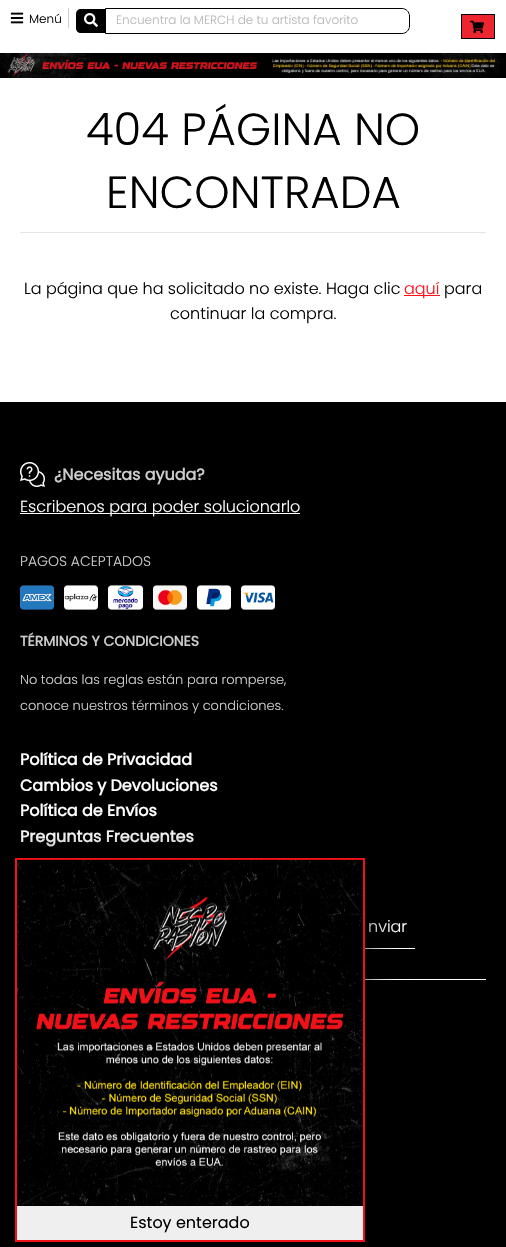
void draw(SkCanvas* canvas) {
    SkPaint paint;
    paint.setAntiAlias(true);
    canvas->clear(0xFF000000);
    paint.setColor(0xFFFFFFFF);
    canvas->drawRect(SkRect::MakeXYWH(0, 0, 506, 402), paint);
    paint.setColor(0xFFCCCCCC);
    canvas->drawRect(SkRect::MakeXYWH(68, 8, 1, 20), paint);
    canvas->drawImageRect(SkImages::DeferredFromEncodedData(SkData::MakeFromFileName("img1.png")), SkRect::MakeXYWH(10, 12, 14, 12), SkSamplingOptions());
    SkFont font1(fontMgr->matchFamilyStyle("Poppins", SkFontStyle(300, SkFontStyle::kNormal_Width, SkFontStyle::kUpright_Slant)), 12);
    font1.setSubpixel(true);
    paint.setColor(0xFF000000);
    canvas->drawString("Menú", 29, 23, font1, paint);
    paint.setStyle(SkPaint::kStroke_Style);
    paint.setStrokeWidth(1);
    canvas->drawPath(SkPathBuilder().moveTo(105.5f, 8.5f).lineTo(402, 8.5f).cubicTo(406, 8.5f, 409.5f, 12, 409.5f, 16).lineTo(409.5f, 26).cubicTo(409.5f, 30, 406, 33.5f, 402, 33.5f).lineTo(105.5f, 33.5f).close().detach(), paint);
    paint.setStyle(SkPaint::kFill_Style);
    canvas->drawPath(SkPathBuilder().moveTo(81, 9).lineTo(106, 9).lineTo(106, 33).lineTo(81, 33).cubicTo(78, 33, 76, 31, 76, 28).lineTo(76, 14).cubicTo(76, 11, 78, 9, 81, 9).close().detach(), paint);
    canvas->drawImageRect(SkImages::DeferredFromEncodedData(SkData::MakeFromFileName("img2.png")), SkRect::MakeXYWH(84, 13, 14, 14), SkSamplingOptions());
    paint.setColor(0xFFB9B9B9);
    canvas->drawString("Encuentra la MERCH de tu artista favorito", 116, 24, font1, paint);
    paint.setColor(0xFFED252F);
    canvas->drawRect(SkRect::MakeXYWH(461.5f, 14.5f, 33, 24), paint);
    paint.setStyle(SkPaint::kStroke_Style);
    paint.setColor(0xFF000000);
    canvas->drawRect(SkRect::MakeXYWH(461.5f, 14.5f, 33, 24), paint);
    canvas->drawImageRect(SkImages::DeferredFromEncodedData(SkData::MakeFromFileName("img3.png")), SkRect::MakeXYWH(470, 20, 14, 14), SkSamplingOptions());
    canvas->drawImageRect(SkImages::DeferredFromEncodedData(SkData::MakeFromFileName("img4.png")), SkRect::MakeXYWH(0, 53, 506, 25), SkSamplingOptions());
    paint.setStyle(SkPaint::kFill_Style);
    paint.setColor(0xFFE5E5E5);
    canvas->drawRect(SkRect::MakeXYWH(20, 232, 466, 1), paint);
    SkFont font2(fontMgr->matchFamilyStyle("Poppins", SkFontStyle(300, SkFontStyle::kNormal_Width, SkFontStyle::kUpright_Slant)), 45);
    font2.setSubpixel(true);
    paint.setColor(0xFF000000);
    canvas->drawString("404 PÁGINA NO", 86, 145, font2, paint);
    canvas->drawString("ENCONTRADA", 106, 208, font2, paint);
    SkFont font3(fontMgr->matchFamilyStyle("Poppins", SkFontStyle(300, SkFontStyle::kNormal_Width, SkFontStyle::kUpright_Slant)), 16);
    font3.setSubpixel(true);
    canvas->drawString("La página que ha solicitado no existe. Haga clic", 24, 294, font3, paint);
    paint.setColor(0xFFFF0F18);
    canvas->drawRect(SkRect::MakeXYWH(404, 295, 36, 1), paint);
    canvas->drawString("aquí", 404, 294, font3, paint);
    paint.setColor(0xFF000000);
    canvas->drawString("para", 444, 294, font3, paint);
    canvas->drawString("continuar la compra.", 170, 319, font3, paint);
    canvas->drawImageRect(SkImages::DeferredFromEncodedData(SkData::MakeFromFileName("img5.png")), SkRect::MakeXYWH(20, 462, 25, 25), SkSamplingOptions());
    SkFont font4(fontMgr->matchFamilyStyle("Poppins", SkFontStyle::Bold()), 16);
    font4.setSubpixel(true);
    paint.setColor(0xFFCCCCCC);
    canvas->drawString("¿Necesitas ayuda?", 54, 480, font4, paint);
    paint.setColor(0xFFFFFFFF);
    canvas->drawRect(SkRect::MakeXYWH(20, 513, 280, 1), paint);
    canvas->drawString("Escribenos para poder solucionarlo", 20, 512, font3, paint);
    SkFont font5(fontMgr->matchFamilyStyle("Poppins", SkFontStyle(300, SkFontStyle::kNormal_Width, SkFontStyle::kUpright_Slant)), 14);
    font5.setSubpixel(true);
    paint.setColor(0xFFCCCCCC);
    canvas->drawString("PAGOS ACEPTADOS", 20, 566, font5, paint);
    canvas->drawImageRect(SkImages::DeferredFromEncodedData(SkData::MakeFromFileName("img6.png")), SkRect::MakeXYWH(20, 585, 34, 25), SkSamplingOptions());
    canvas->drawImageRect(SkImages::DeferredFromEncodedData(SkData::MakeFromFileName("img7.png")), SkRect::MakeXYWH(64, 585, 34, 25), SkSamplingOptions());
    canvas->drawImageRect(SkImages::DeferredFromEncodedData(SkData::MakeFromFileName("img8.png")), SkRect::MakeXYWH(108, 585, 35, 25), SkSamplingOptions());
    canvas->drawImageRect(SkImages::DeferredFromEncodedData(SkData::MakeFromFileName("img9.png")), SkRect::MakeXYWH(153, 585, 34, 25), SkSamplingOptions());
    canvas->drawImageRect(SkImages::DeferredFromEncodedData(SkData::MakeFromFileName("img10.png")), SkRect::MakeXYWH(197, 585, 34, 25), SkSamplingOptions());
    canvas->drawImageRect(SkImages::DeferredFromEncodedData(SkData::MakeFromFileName("img11.png")), SkRect::MakeXYWH(241, 585, 34, 25), SkSamplingOptions());
    SkFont font6(fontMgr->matchFamilyStyle("Poppins", SkFontStyle::Bold()), 14);
    font6.setSubpixel(true);
    canvas->drawString("TÉRMINOS Y CONDICIONES", 20, 646, font6, paint);
    SkFont font7(fontMgr->matchFamilyStyle("Poppins", SkFontStyle(300, SkFontStyle::kNormal_Width, SkFontStyle::kUpright_Slant)), 13);
    font7.setSubpixel(true);
    canvas->drawString("No todas las reglas están para romperse,", 20, 684, font7, paint);
    canvas->drawString("conoce nuestros términos y condiciones.", 20, 710, font7, paint);
    paint.setColor(0xFFFFFFFF);
    canvas->drawString("Política de Privacidad", 20, 765, font4, paint);
    canvas->drawString("Cambios y Devoluciones", 20, 791, font4, paint);
    canvas->drawString("Política de Envíos", 20, 816, font4, paint);
    canvas->drawString("Preguntas Frecuentes", 20, 842, font4, paint);
    canvas->drawRect(SkRect::MakeXYWH(365, 948, 50, 1), paint);
    canvas->drawString("nviar", 368, 932, font3, paint);
    canvas->drawRect(SkRect::MakeXYWH(365, 979, 121, 1), paint);
    paint.setColor(0xB5000000);
    paint.setMaskFilter(SkMaskFilter::MakeBlur(kNormal_SkBlurStyle, 16));
    canvas->drawRect(SkRect::MakeXYWH(16, 858, 350, 384), paint);
    paint.setMaskFilter(nullptr);
    paint.setStyle(SkPaint::kStroke_Style);
    paint.setStrokeWidth(2);
    paint.setColor(0xFFF21119);
    canvas->drawRect(SkRect::MakeXYWH(16, 859, 348, 382), paint);
    canvas->drawImageRect(SkImages::DeferredFromEncodedData(SkData::MakeFromFileName("img12.png")), SkRect::MakeXYWH(17, 859, 346, 347), SkSamplingOptions());
    paint.setStyle(SkPaint::kFill_Style);
    paint.setColor(0xFFEFEFEF);
    canvas->drawRect(SkRect::MakeXYWH(17, 1206, 346, 34), paint);
    SkFont font8(fontMgr->matchFamilyStyle("Poppins", SkFontStyle::Normal()), 16);
    font8.setSubpixel(true);
    paint.setColor(0xFF000000);
    canvas->drawString("Estoy enterado", 130, 1228, font8, paint);
}
